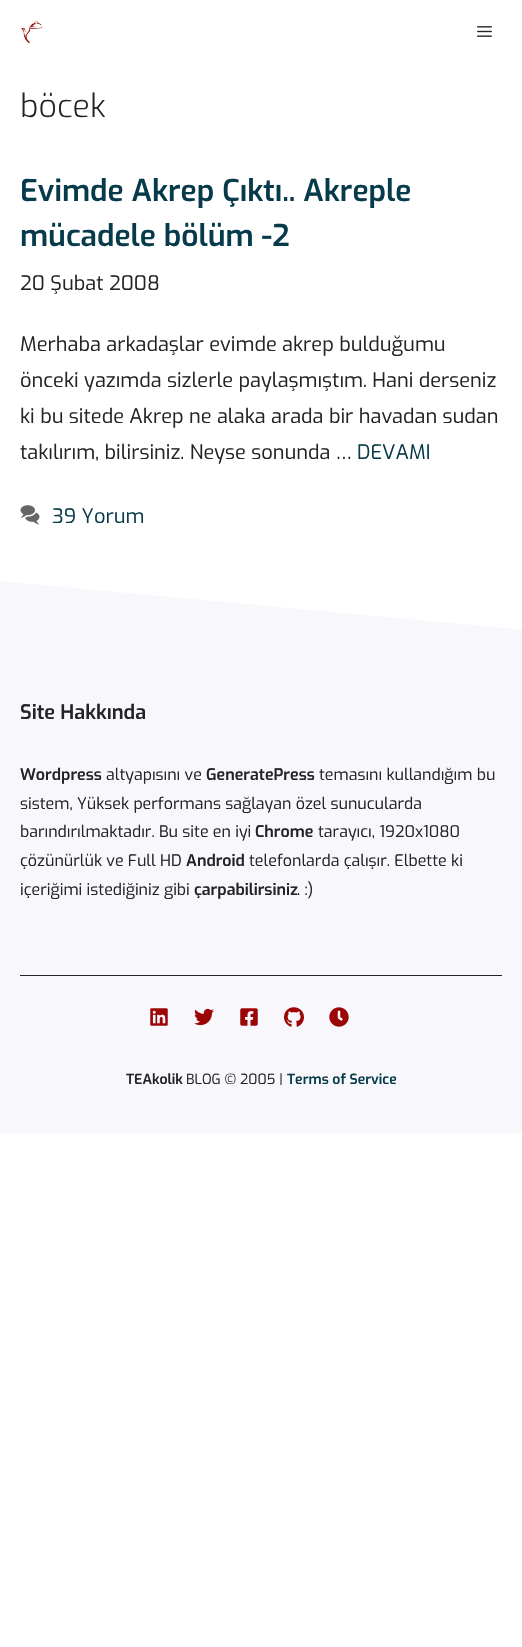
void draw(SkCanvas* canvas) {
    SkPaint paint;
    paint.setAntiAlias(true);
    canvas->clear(0xFFFFFFFF);
    canvas->drawImageRect(SkImages::DeferredFromEncodedData(SkData::MakeFromFileName("img1.png")), SkRect::MakeXYWH(21, 20, 22, 23), SkSamplingOptions());
    canvas->drawImageRect(SkImages::DeferredFromEncodedData(SkData::MakeFromFileName("img2.png")), SkRect::MakeXYWH(477, 26, 15, 11), SkSamplingOptions());
    SkFont font1(fontMgr->matchFamilyStyle("Exo", SkFontStyle(300, SkFontStyle::kNormal_Width, SkFontStyle::kUpright_Slant)), 32);
    font1.setSubpixel(true);
    paint.setColor(0xFF242424);
    canvas->drawString("böcek", 20, 117, font1, paint);
    SkFont font2(fontMgr->matchFamilyStyle("Exo", SkFontStyle(600, SkFontStyle::kNormal_Width, SkFontStyle::kUpright_Slant)), 30);
    font2.setSubpixel(true);
    paint.setColor(0xFF073B4C);
    canvas->drawString("Evimde Akrep Çıktı.. Akreple", 20, 201, font2, paint);
    canvas->drawString("mücadele bölüm -2", 20, 246, font2, paint);
    SkFont font3(fontMgr->matchFamilyStyle("Exo", SkFontStyle::Normal()), 20);
    font3.setSubpixel(true);
    paint.setColor(0xFF242424);
    canvas->drawString("20 Şubat 2008", 20, 290, font3, paint);
    canvas->drawString("Merhaba arkadaşlar evimde akrep bulduğumu", 20, 351, font3, paint);
    canvas->drawString("önceki yazımda sizlerle paylaşmıştım. Hani derseniz", 20, 387, font3, paint);
    canvas->drawString("ki bu sitede Akrep ne alaka arada bir havadan sudan", 20, 423, font3, paint);
    canvas->drawString("takılırım, bilirsiniz. Neyse sonunda …", 20, 459, font3, paint);
    paint.setColor(0xFF073B4C);
    canvas->drawString("DEVAMI", 357, 459, font3, paint);
    canvas->drawImageRect(SkImages::DeferredFromEncodedData(SkData::MakeFromFileName("img3.png")), SkRect::MakeXYWH(20, 505, 20, 20), SkSamplingOptions());
    canvas->drawString("39 Yorum", 52, 523, font3, paint);
    paint.setColor(0xFFF7F7FC);
    canvas->drawRect(SkRect::MakeXYWH(0, 581, 522, 552), paint);
    paint.setColor(0xFFFFFFFF);
    canvas->drawPath(SkPathBuilder().moveTo(-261, 554).lineTo(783, 554).lineTo(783, 654).lineTo(-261, 557).close().detach(), paint);
    SkFont font4(fontMgr->matchFamilyStyle("Exo", SkFontStyle(600, SkFontStyle::kNormal_Width, SkFontStyle::kUpright_Slant)), 20);
    font4.setSubpixel(true);
    paint.setColor(0xFF242424);
    canvas->drawString("Site Hakkında", 20, 719, font4, paint);
    SkFont font5(fontMgr->matchFamilyStyle("Exo", SkFontStyle(600, SkFontStyle::kNormal_Width, SkFontStyle::kUpright_Slant)), 16);
    font5.setSubpixel(true);
    canvas->drawString("Wordpress", 20, 780, font5, paint);
    SkFont font6(fontMgr->matchFamilyStyle("Exo", SkFontStyle::Normal()), 16);
    font6.setSubpixel(true);
    canvas->drawString("altyapısını ve", 106, 780, font6, paint);
    canvas->drawString("GeneratePress", 206, 780, font5, paint);
    canvas->drawString("temasını kullandığım bu", 319, 780, font6, paint);
    canvas->drawString("sistem, Yüksek performans sağlayan özel sunucularda", 20, 809, font6, paint);
    canvas->drawString("barındırılmaktadır. Bu site en iyi", 20, 837, font6, paint);
    canvas->drawString("Chrome", 255, 837, font5, paint);
    canvas->drawString("tarayıcı, 1920x1080", 318, 837, font6, paint);
    canvas->drawString("çözünürlük ve Full HD", 20, 866, font6, paint);
    canvas->drawString("Android", 186, 866, font5, paint);
    canvas->drawString("telefonlarda çalışır. Elbette ki", 249, 866, font6, paint);
    canvas->drawString("içeriğimi istediğiniz gibi", 20, 895, font6, paint);
    canvas->drawString("çarpabilirsiniz", 194, 895, font5, paint);
    canvas->drawString(". :)", 297, 895, font6, paint);
    canvas->drawRect(SkRect::MakeXYWH(20, 975, 482, 1), paint);
    canvas->drawImageRect(SkImages::DeferredFromEncodedData(SkData::MakeFromFileName("img4.png")), SkRect::MakeXYWH(150, 1008, 18, 18), SkSamplingOptions());
    canvas->drawImageRect(SkImages::DeferredFromEncodedData(SkData::MakeFromFileName("img5.png")), SkRect::MakeXYWH(194, 1008, 20, 18), SkSamplingOptions());
    canvas->drawImageRect(SkImages::DeferredFromEncodedData(SkData::MakeFromFileName("img6.png")), SkRect::MakeXYWH(240, 1008, 18, 18), SkSamplingOptions());
    canvas->drawImageRect(SkImages::DeferredFromEncodedData(SkData::MakeFromFileName("img7.png")), SkRect::MakeXYWH(284, 1007, 20, 20), SkSamplingOptions());
    canvas->drawImageRect(SkImages::DeferredFromEncodedData(SkData::MakeFromFileName("img8.png")), SkRect::MakeXYWH(329, 1007, 20, 20), SkSamplingOptions());
    SkFont font7(fontMgr->matchFamilyStyle("Exo", SkFontStyle(600, SkFontStyle::kNormal_Width, SkFontStyle::kUpright_Slant)), 14);
    font7.setSubpixel(true);
    canvas->drawString("TEAkolik", 126, 1084, font7, paint);
    SkFont font8(fontMgr->matchFamilyStyle("Exo", SkFontStyle::Normal()), 14);
    font8.setSubpixel(true);
    canvas->drawString("BLOG © 2005 |", 186, 1084, font8, paint);
    paint.setColor(0xFF073B4C);
    canvas->drawString("Terms of Service", 287, 1084, font7, paint);
}
